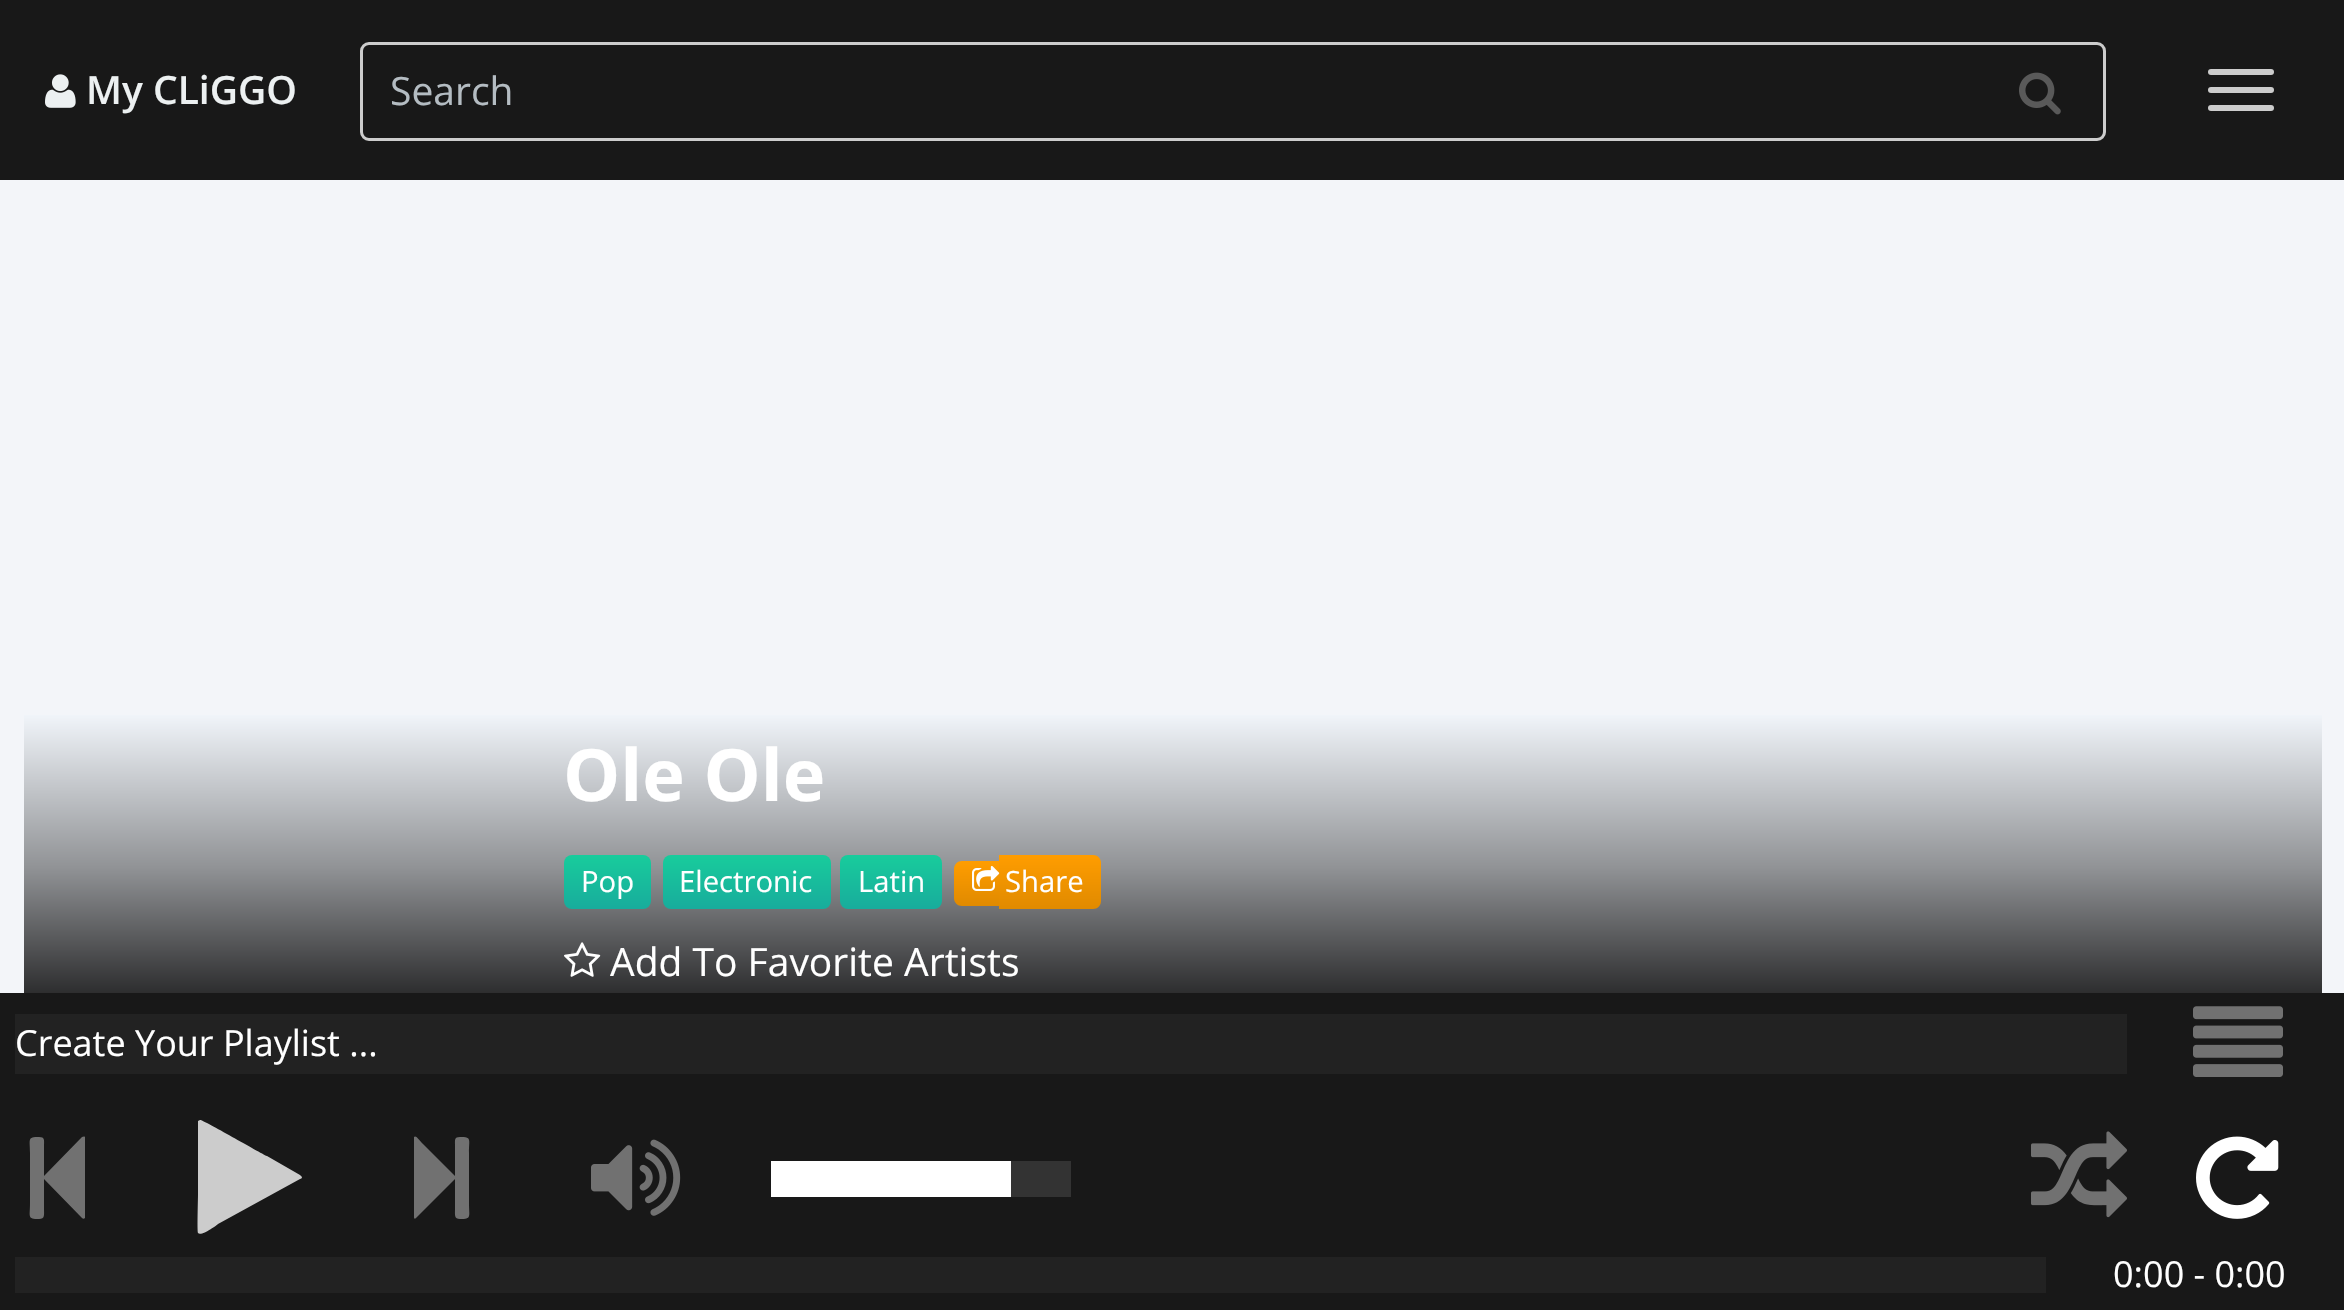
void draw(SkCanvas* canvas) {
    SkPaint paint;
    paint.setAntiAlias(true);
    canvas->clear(0xFFF3F5F9);
    paint.setColor(0xFF181818);
    canvas->drawRect(SkRect::MakeXYWH(0, 0, 2344, 180), paint);
    canvas->drawImageRect(SkImages::DeferredFromEncodedData(SkData::MakeFromFileName("img1.png")), SkRect::MakeXYWH(45, 74, 31, 34), SkSamplingOptions());
    SkFont font1(fontMgr->matchFamilyStyle("Open Sans", SkFontStyle(600, SkFontStyle::kNormal_Width, SkFontStyle::kUpright_Slant)), 39);
    font1.setSubpixel(true);
    paint.setColor(0xFFECF0F1);
    canvas->drawString("My CLiGGO", 86, 104, font1, paint);
    paint.setStyle(SkPaint::kStroke_Style);
    paint.setStrokeWidth(3);
    paint.setColor(0xFFCCCCCC);
    canvas->drawRoundRect(SkRect::MakeXYWH(361.5f, 43.5f, 1743, 96), 7.5f, 7.5f, paint);
    SkFont font2(fontMgr->matchFamilyStyle("Open Sans", SkFontStyle::Normal()), 39);
    font2.setSubpixel(true);
    paint.setStyle(SkPaint::kFill_Style);
    paint.setColor(0xFFB4BCC2);
    canvas->drawString("Search", 390, 105, font2, paint);
    canvas->drawImageRect(SkImages::DeferredFromEncodedData(SkData::MakeFromFileName("img2.png")), SkRect::MakeXYWH(2019, 72, 42, 43), SkSamplingOptions());
    paint.setColor(0xFFCCCCCC);
    canvas->drawRoundRect(SkRect::MakeXYWH(2208, 69, 66, 6), 3, 3, paint);
    canvas->drawRoundRect(SkRect::MakeXYWH(2208, 87, 66, 6), 3, 3, paint);
    canvas->drawRoundRect(SkRect::MakeXYWH(2208, 105, 66, 6), 3, 3, paint);
    {
        const SkColor colors[] = {0xFFF1F5FA, 0xFF919396, 0xFF181819};
        const float stops[] = {0, 0.5f, 1};
        const SkPoint ends[] = {{1173, 714}, {1173, 1020}};
        paint.setShader(SkGradientShader::MakeLinear(ends, colors, stops, 3, SkTileMode::kClamp));
        paint.setAlpha(255);
    }
    canvas->drawRect(SkRect::MakeXYWH(24, 715, 2298, 278), paint);
    SkFont font3(fontMgr->matchFamilyStyle("Open Sans", SkFontStyle::Bold()), 72);
    font3.setSubpixel(true);
    paint.setShader(nullptr);
    paint.setColor(0xFFFFFFFF);
    canvas->drawString("Ole Ole", 563, 801, font3, paint);
    {
        const SkColor colors[] = {0xFF18CC9C, 0xFF18AC9C};
        const float stops[] = {0, 1};
        const SkPoint ends[] = {{608, 855}, {608, 909}};
        paint.setShader(SkGradientShader::MakeLinear(ends, colors, stops, 2, SkTileMode::kClamp));
        paint.setAlpha(255);
    }
    canvas->drawRoundRect(SkRect::MakeXYWH(564, 855, 87, 54), 8, 8, paint);
    SkFont font4(fontMgr->matchFamilyStyle("Open Sans", SkFontStyle::Normal()), 29.25f);
    font4.setSubpixel(true);
    paint.setShader(nullptr);
    paint.setColor(0xFFFFFFFF);
    canvas->drawString("Pop", 581, 892, font4, paint);
    {
        const SkColor colors[] = {0xFF18CC9C, 0xFF18AC9C};
        const float stops[] = {0, 1};
        const SkPoint ends[] = {{747, 855}, {747, 909}};
        paint.setShader(SkGradientShader::MakeLinear(ends, colors, stops, 2, SkTileMode::kClamp));
        paint.setAlpha(255);
    }
    canvas->drawRoundRect(SkRect::MakeXYWH(663, 855, 168, 54), 8, 8, paint);
    paint.setShader(nullptr);
    paint.setColor(0xFFFFFFFF);
    canvas->drawString("Electronic", 679, 892, font4, paint);
    {
        const SkColor colors[] = {0xFF18CC9C, 0xFF18AC9C};
        const float stops[] = {0, 1};
        const SkPoint ends[] = {{891, 855}, {891, 909}};
        paint.setShader(SkGradientShader::MakeLinear(ends, colors, stops, 2, SkTileMode::kClamp));
        paint.setAlpha(255);
    }
    canvas->drawRoundRect(SkRect::MakeXYWH(840, 855, 102, 54), 8, 8, paint);
    paint.setShader(nullptr);
    paint.setColor(0xFFFFFFFF);
    canvas->drawString("Latin", 858, 892, font4, paint);
    {
        const SkColor colors[] = {0xFFFF9D00, 0xFFE08A00};
        const float stops[] = {0, 1};
        const SkPoint ends[] = {{977, 861}, {977, 906}};
        paint.setShader(SkGradientShader::MakeLinear(ends, colors, stops, 2, SkTileMode::kClamp));
        paint.setAlpha(255);
    }
    canvas->drawPath(SkPathBuilder().moveTo(962, 861).lineTo(999, 861).lineTo(999, 906).lineTo(962, 906).cubicTo(957.5f, 906, 954, 902.5f, 954, 898).lineTo(954, 869).cubicTo(954, 864.5f, 957.5f, 861, 962, 861).close().detach(), paint);
    {
        const SkColor colors[] = {0xFFFF9D00, 0xFFE08A00};
        const float stops[] = {0, 1};
        const SkPoint ends[] = {{1050, 855}, {1050, 909}};
        paint.setShader(SkGradientShader::MakeLinear(ends, colors, stops, 2, SkTileMode::kClamp));
        paint.setAlpha(255);
    }
    canvas->drawPath(SkPathBuilder().moveTo(999, 855).lineTo(1093, 855).cubicTo(1097.5f, 855, 1101, 858.5f, 1101, 863).lineTo(1101, 901).cubicTo(1101, 905.5f, 1097.5f, 909, 1093, 909).lineTo(999, 909).close().detach(), paint);
    canvas->drawImageRect(SkImages::DeferredFromEncodedData(SkData::MakeFromFileName("img3.png")), SkRect::MakeXYWH(972, 865, 28, 26), SkSamplingOptions());
    paint.setShader(nullptr);
    paint.setColor(0xFFFFFFFF);
    canvas->drawString("Share", 1005, 892, font4, paint);
    canvas->drawImageRect(SkImages::DeferredFromEncodedData(SkData::MakeFromFileName("img4.png")), SkRect::MakeXYWH(564, 942, 37, 35), SkSamplingOptions());
    canvas->drawString("Add To Favorite Artists", 610, 976, font2, paint);
    paint.setColor(0xFF181818);
    canvas->drawRect(SkRect::MakeXYWH(0, 993, 2344, 317), paint);
    paint.setColor(0xFF222222);
    canvas->drawRect(SkRect::MakeXYWH(15, 1014, 2112, 60), paint);
    SkFont font5(fontMgr->matchFamilyStyle("Open Sans", SkFontStyle::Normal()), 36);
    font5.setSubpixel(true);
    paint.setColor(0xFFFFFFFF);
    canvas->drawString("Create Your Playlist ...", 15, 1056, font5, paint);
    canvas->drawImageRect(SkImages::DeferredFromEncodedData(SkData::MakeFromFileName("img5.png")), SkRect::MakeXYWH(2193, 1006, 90, 71), SkSamplingOptions());
    paint.setColor(0xFF717171);
    canvas->drawPath(SkPathBuilder().moveTo(82, 1137).cubicTo(83, 1137, 84, 1136, 85, 1137).lineTo(85, 1218).cubicTo(84, 1219, 83, 1219, 82, 1218).lineTo(44, 1179).lineTo(44, 1209).cubicTo(44, 1215, 45, 1219, 39, 1219).cubicTo(27, 1219, 30, 1217, 30, 1203).lineTo(30, 1153).cubicTo(30, 1139, 27, 1137, 39, 1137).cubicTo(45, 1137, 44, 1140, 44, 1146).lineTo(44, 1176).close().detach(), paint);
    paint.setColor(0xFFCCCCCC);
    canvas->drawPath(SkPathBuilder().moveTo(300, 1179).lineTo(218, 1224).cubicTo(217, 1225, 201, 1237, 198, 1233).cubicTo(197, 1231, 198, 1198, 198, 1195).lineTo(198, 1121).lineTo(200, 1120).cubicTo(202, 1119, 260, 1153, 267, 1156).lineTo(300, 1175).lineTo(302, 1177).cubicTo(302, 1178, 301, 1179, 300, 1179).close().detach(), paint);
    paint.setColor(0xFF717171);
    canvas->drawPath(SkPathBuilder().moveTo(416, 1218).cubicTo(415, 1219, 414, 1219, 414, 1217).lineTo(414, 1138).lineTo(414, 1137).cubicTo(416, 1135, 418, 1139, 423, 1144).lineTo(455, 1176).lineTo(455, 1146).cubicTo(455, 1140, 454, 1137, 460, 1137).cubicTo(472, 1137, 469, 1139, 469, 1153).lineTo(469, 1203).cubicTo(469, 1217, 472, 1219, 460, 1219).cubicTo(454, 1219, 455, 1215, 455, 1209).lineTo(455, 1179).close().detach(), paint);
    canvas->drawImageRect(SkImages::DeferredFromEncodedData(SkData::MakeFromFileName("img6.png")), SkRect::MakeXYWH(591, 1139, 90, 77), SkSamplingOptions());
    paint.setColor(0xFFFFFFFF);
    canvas->drawRect(SkRect::MakeXYWH(771, 1161, 240, 36), paint);
    paint.setColor(0xFF333333);
    canvas->drawRect(SkRect::MakeXYWH(1011, 1161, 60, 36), paint);
    canvas->drawImageRect(SkImages::DeferredFromEncodedData(SkData::MakeFromFileName("img7.png")), SkRect::MakeXYWH(2031, 1131, 96, 87), SkSamplingOptions());
    canvas->drawImageRect(SkImages::DeferredFromEncodedData(SkData::MakeFromFileName("img8.png")), SkRect::MakeXYWH(2196, 1136, 83, 83), SkSamplingOptions());
    paint.setColor(0xFF222222);
    canvas->drawRect(SkRect::MakeXYWH(15, 1257, 2031, 36), paint);
    paint.setColor(0xFFFFFFFF);
    canvas->drawString("0:00 - 0:00", 2113, 1287, font5, paint);
}
